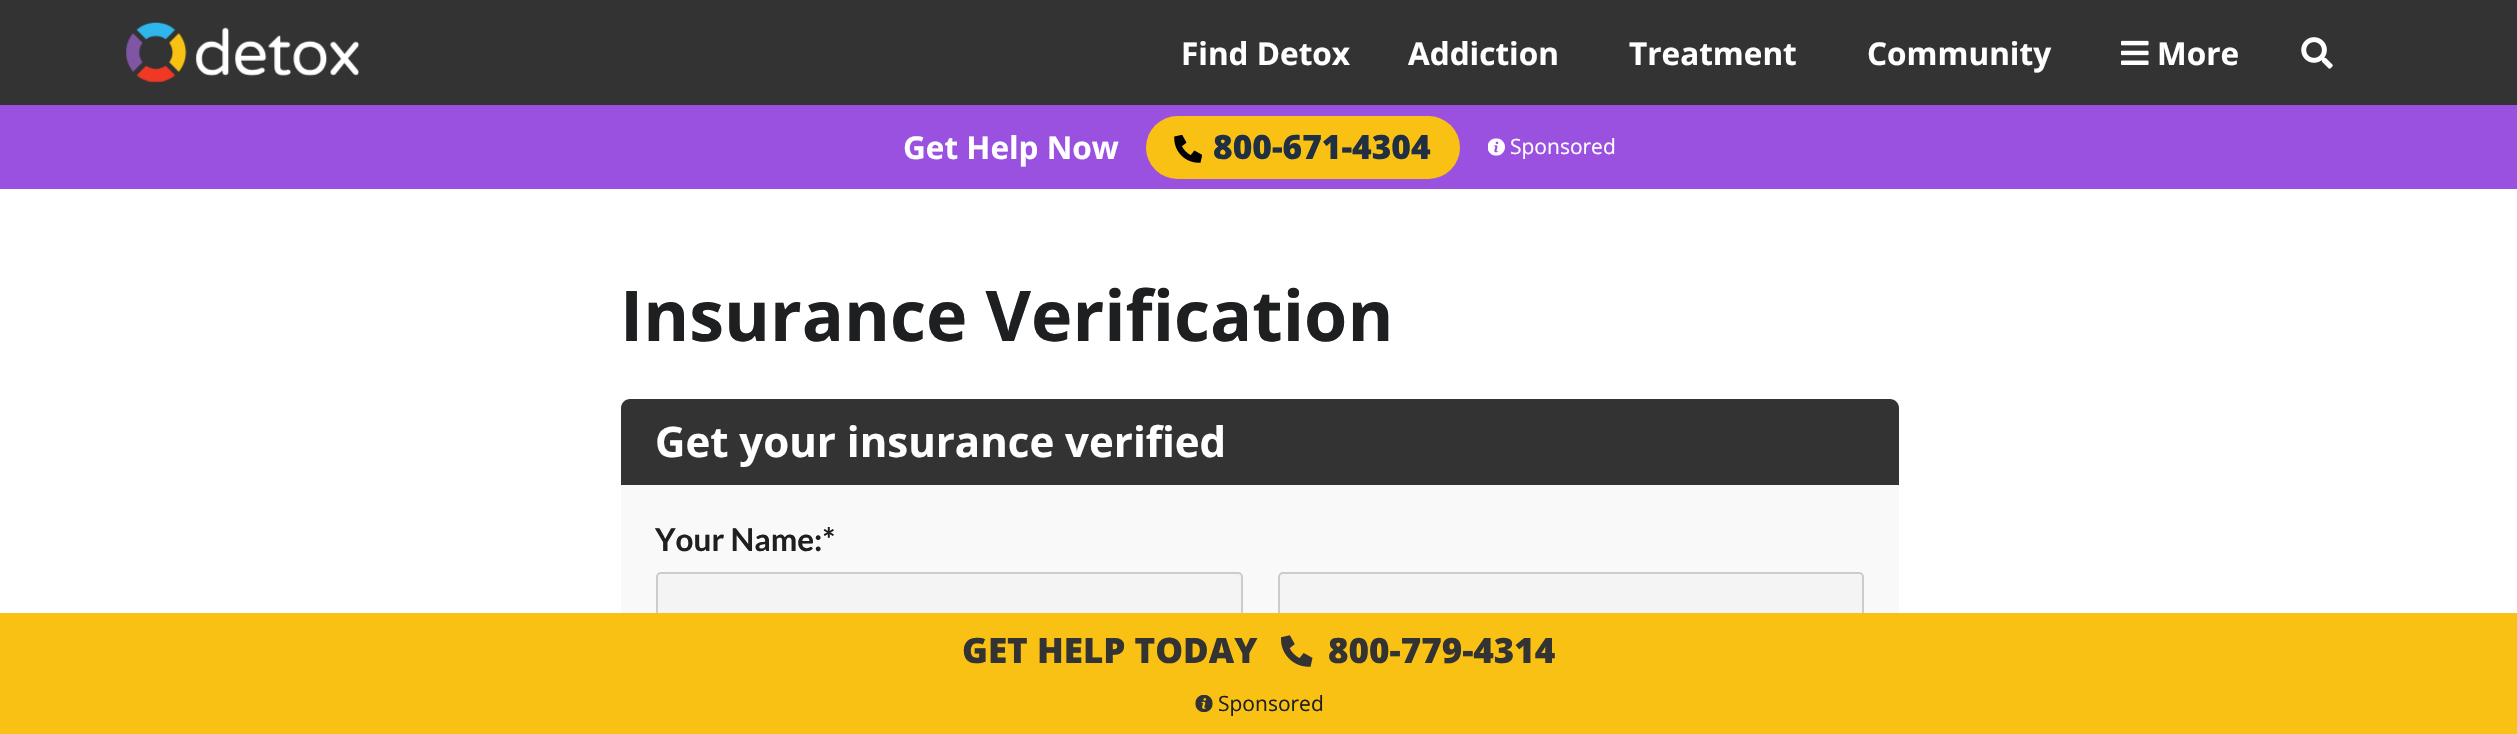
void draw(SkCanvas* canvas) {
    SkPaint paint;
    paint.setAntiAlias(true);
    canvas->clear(0xFFFFFFFF);
    paint.setColor(0xFF333333);
    canvas->drawRect(SkRect::MakeXYWH(0, 0, 2517, 105), paint);
    canvas->drawImageRect(SkImages::DeferredFromEncodedData(SkData::MakeFromFileName("img1.png")), SkRect::MakeXYWH(126, 22, 234, 61), SkSamplingOptions());
    SkFont font1(fontMgr->matchFamilyStyle("Open Sans", SkFontStyle::Bold()), 31.5f);
    font1.setSubpixel(true);
    paint.setColor(0xFFFFFFFF);
    canvas->drawString("Find Detox", 1181, 65, font1, paint);
    canvas->drawString("Addiction", 1408, 65, font1, paint);
    canvas->drawString("Treatment", 1629, 65, font1, paint);
    canvas->drawString("Community", 1867, 65, font1, paint);
    canvas->drawImageRect(SkImages::DeferredFromEncodedData(SkData::MakeFromFileName("img2.png")), SkRect::MakeXYWH(2121, 40, 28, 25), SkSamplingOptions());
    canvas->drawString("More", 2157, 65, font1, paint);
    canvas->drawImageRect(SkImages::DeferredFromEncodedData(SkData::MakeFromFileName("img3.png")), SkRect::MakeXYWH(2301, 37, 32, 32), SkSamplingOptions());
    paint.setColor(0xFF9B51E0);
    canvas->drawRect(SkRect::MakeXYWH(0, 105, 2517, 84), paint);
    paint.setColor(0xFFFFFFFF);
    canvas->drawString("Get Help Now", 903, 159, font1, paint);
    paint.setColor(0xFFF9C113);
    canvas->drawRoundRect(SkRect::MakeXYWH(1146, 116, 314, 63), 31.5f, 31.5f, paint);
    canvas->drawImageRect(SkImages::DeferredFromEncodedData(SkData::MakeFromFileName("img4.png")), SkRect::MakeXYWH(1174, 135, 28, 28), SkSamplingOptions());
    SkFont font2(fontMgr->matchFamilyStyle("Open Sans", SkFontStyle(800, SkFontStyle::kNormal_Width, SkFontStyle::kUpright_Slant)), 33.5f);
    font2.setSubpixel(true);
    paint.setColor(0xFF203042);
    canvas->drawString("800-671-4304", 1213, 159, font2, paint);
    canvas->drawImageRect(SkImages::DeferredFromEncodedData(SkData::MakeFromFileName("img5.png")), SkRect::MakeXYWH(1488, 138, 17, 18), SkSamplingOptions());
    SkFont font3(fontMgr->matchFamilyStyle("Open Sans", SkFontStyle::Normal()), 21);
    font3.setSubpixel(true);
    paint.setColor(0xFFFFFFFF);
    canvas->drawString("Sponsored", 1510, 154, font3, paint);
    SkFont font4(fontMgr->matchFamilyStyle("Open Sans", SkFontStyle::Bold()), 70);
    font4.setSubpixel(true);
    paint.setColor(0xFF1E1F21);
    canvas->drawString("Insurance Verification", 620, 341, font4, paint);
    paint.setColor(0xFF333333);
    canvas->drawPath(SkPathBuilder().moveTo(630, 399).lineTo(1890, 399).cubicTo(1895, 399, 1899, 403, 1899, 408).lineTo(1899, 485).lineTo(621, 485).lineTo(621, 408).cubicTo(621, 403, 625, 399, 630, 399).close().detach(), paint);
    SkFont font5(fontMgr->matchFamilyStyle("Open Sans", SkFontStyle::Bold()), 42);
    font5.setSubpixel(true);
    paint.setColor(0xFFFFFFFF);
    canvas->drawString("Get your insurance verified", 655, 457, font5, paint);
    paint.setColor(0xFFF9F9F9);
    canvas->drawRect(SkRect::MakeXYWH(621, 485, 1278, 128), paint);
    SkFont font6(fontMgr->matchFamilyStyle("Lato", SkFontStyle::Bold()), 31.5f);
    font6.setSubpixel(true);
    paint.setColor(0xFF1E1F21);
    canvas->drawString("Your Name:*", 655, 551, font6, paint);
    paint.setColor(0xFFF4F4F4);
    canvas->drawRoundRect(SkRect::MakeXYWH(657, 573, 585, 53), 4, 4, paint);
    paint.setStyle(SkPaint::kStroke_Style);
    paint.setStrokeWidth(2);
    paint.setColor(0xFFCCCCCC);
    canvas->drawRoundRect(SkRect::MakeXYWH(657, 573, 585, 53), 4, 4, paint);
    paint.setStyle(SkPaint::kFill_Style);
    paint.setColor(0xFFF4F4F4);
    canvas->drawRoundRect(SkRect::MakeXYWH(1279, 573, 584, 53), 4, 4, paint);
    paint.setStyle(SkPaint::kStroke_Style);
    paint.setColor(0xFFCCCCCC);
    canvas->drawRoundRect(SkRect::MakeXYWH(1279, 573, 584, 53), 4, 4, paint);
    paint.setStyle(SkPaint::kFill_Style);
    paint.setColor(0xFFF9C113);
    canvas->drawRect(SkRect::MakeXYWH(0, 613, 2517, 121), paint);
    SkFont font7(fontMgr->matchFamilyStyle("Open Sans", SkFontStyle(800, SkFontStyle::kNormal_Width, SkFontStyle::kUpright_Slant)), 35);
    font7.setSubpixel(true);
    paint.setColor(0xFF333333);
    canvas->drawString("GET HELP TODAY", 962, 663, font7, paint);
    canvas->drawImageRect(SkImages::DeferredFromEncodedData(SkData::MakeFromFileName("img6.png")), SkRect::MakeXYWH(1281, 635, 32, 32), SkSamplingOptions());
    canvas->drawString("800-779-4314", 1328, 663, font7, paint);
    canvas->drawImageRect(SkImages::DeferredFromEncodedData(SkData::MakeFromFileName("img7.png")), SkRect::MakeXYWH(1195, 695, 18, 17), SkSamplingOptions());
    paint.setColor(0xFF1E1F21);
    canvas->drawString("Sponsored", 1218, 711, font3, paint);
}
